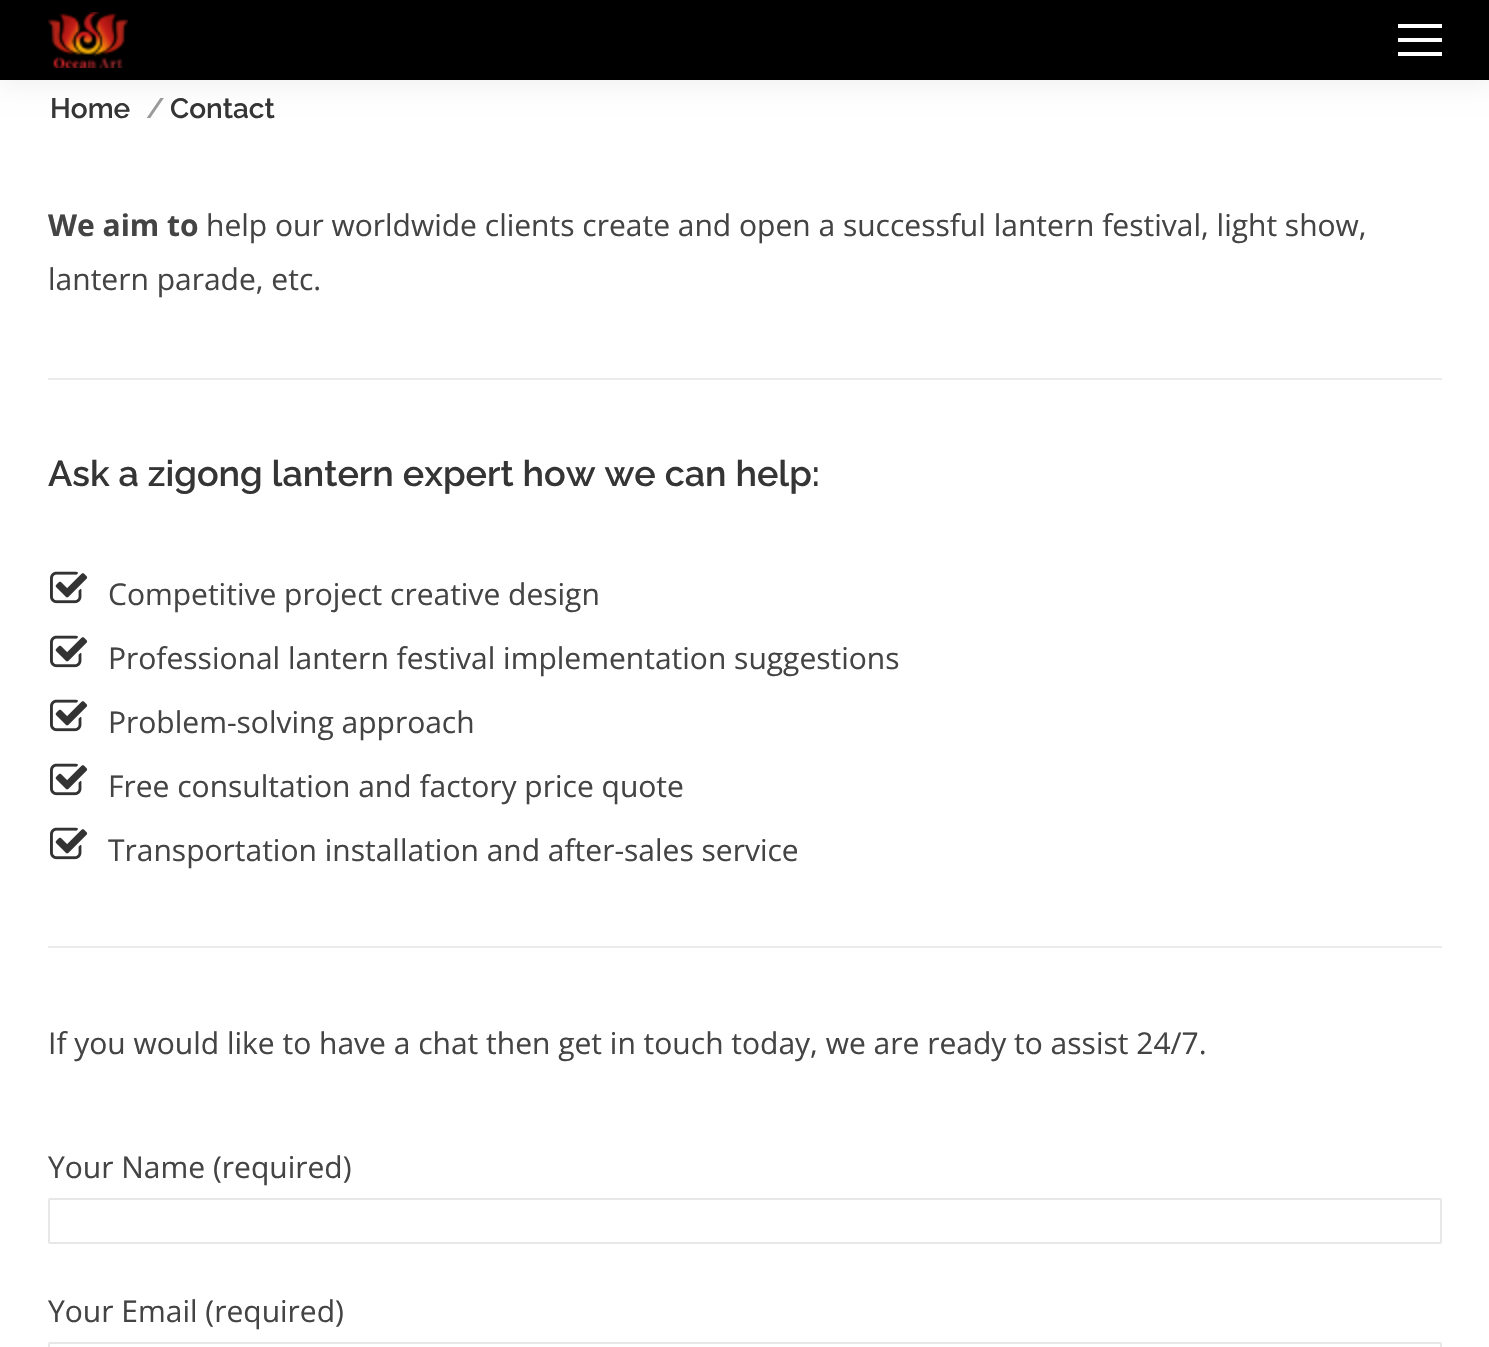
void draw(SkCanvas* canvas) {
    SkPaint paint;
    paint.setAntiAlias(true);
    canvas->clear(0xFFFFFFFF);
    paint.setColor(0x12000000);
    paint.setMaskFilter(SkMaskFilter::MakeBlur(kNormal_SkBlurStyle, 15));
    canvas->drawRect(SkRect::MakeXYWH(-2, -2, 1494, 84), paint);
    paint.setMaskFilter(nullptr);
    paint.setColor(0xFF000000);
    canvas->drawRect(SkRect::MakeXYWH(0, 0, 1489, 80), paint);
    canvas->drawImageRect(SkImages::DeferredFromEncodedData(SkData::MakeFromFileName("img1.png")), SkRect::MakeXYWH(48, 12, 80, 56), SkSamplingOptions());
    paint.setColor(0xFFFFFFFF);
    canvas->drawRect(SkRect::MakeXYWH(1398, 38, 44, 4), paint);
    canvas->drawRect(SkRect::MakeXYWH(1398, 24, 44, 4), paint);
    canvas->drawRect(SkRect::MakeXYWH(1398, 52, 44, 4), paint);
    SkFont font1(fontMgr->matchFamilyStyle("Raleway", SkFontStyle(600, SkFontStyle::kNormal_Width, SkFontStyle::kUpright_Slant)), 28);
    font1.setSubpixel(true);
    paint.setColor(0xFF353535);
    canvas->drawString("Home", 50, 118, font1, paint);
    paint.setColor(0xFF9A9A9A);
    canvas->drawString("/", 146, 118, font1, paint);
    paint.setColor(0xFF353535);
    canvas->drawString("Contact", 170, 118, font1, paint);
    SkFont font2(fontMgr->matchFamilyStyle("Open Sans", SkFontStyle::Bold()), 30);
    font2.setSubpixel(true);
    paint.setColor(0xFF444444);
    canvas->drawString("We aim to", 48, 236, font2, paint);
    SkFont font3(fontMgr->matchFamilyStyle("Open Sans", SkFontStyle::Normal()), 30);
    font3.setSubpixel(true);
    canvas->drawString("help our worldwide clients create and open a successful lantern festival, light show,", 206, 236, font3, paint);
    canvas->drawString("lantern parade, etc.", 48, 290, font3, paint);
    paint.setColor(0xFFEBEBEB);
    canvas->drawRect(SkRect::MakeXYWH(48, 378, 1394, 2), paint);
    SkFont font4(fontMgr->matchFamilyStyle("Raleway", SkFontStyle(600, SkFontStyle::kNormal_Width, SkFontStyle::kUpright_Slant)), 36);
    font4.setSubpixel(true);
    paint.setColor(0xFF353535);
    canvas->drawString("Ask a zigong lantern expert how we can help:", 48, 486, font4, paint);
    canvas->drawImageRect(SkImages::DeferredFromEncodedData(SkData::MakeFromFileName("img2.png")), SkRect::MakeXYWH(50, 571, 38, 33), SkSamplingOptions());
    paint.setColor(0xFF444444);
    canvas->drawString("Competitive project creative design", 108, 605, font3, paint);
    canvas->drawImageRect(SkImages::DeferredFromEncodedData(SkData::MakeFromFileName("img2.png")), SkRect::MakeXYWH(50, 635, 38, 33), SkSamplingOptions());
    canvas->drawString("Professional lantern festival implementation suggestions", 108, 669, font3, paint);
    canvas->drawImageRect(SkImages::DeferredFromEncodedData(SkData::MakeFromFileName("img2.png")), SkRect::MakeXYWH(50, 699, 38, 33), SkSamplingOptions());
    canvas->drawString("Problem-solving approach", 108, 733, font3, paint);
    canvas->drawImageRect(SkImages::DeferredFromEncodedData(SkData::MakeFromFileName("img2.png")), SkRect::MakeXYWH(50, 763, 38, 33), SkSamplingOptions());
    canvas->drawString("Free consultation and factory price quote", 108, 797, font3, paint);
    canvas->drawImageRect(SkImages::DeferredFromEncodedData(SkData::MakeFromFileName("img2.png")), SkRect::MakeXYWH(50, 827, 38, 33), SkSamplingOptions());
    canvas->drawString("Transportation installation and after-sales service", 108, 861, font3, paint);
    paint.setColor(0xFFEBEBEB);
    canvas->drawRect(SkRect::MakeXYWH(48, 946, 1394, 2), paint);
    paint.setColor(0xFF444444);
    canvas->drawString("If you would like to have a chat then get in touch today, we are ready to assist 24/7.", 48, 1054, font3, paint);
    canvas->drawString("Your Name (required)", 48, 1178, font3, paint);
    paint.setStyle(SkPaint::kStroke_Style);
    paint.setStrokeWidth(2);
    paint.setColor(0xFFE6E7E9);
    canvas->drawRoundRect(SkRect::MakeXYWH(49, 1199, 1392, 44), 1, 1, paint);
    paint.setStyle(SkPaint::kFill_Style);
    paint.setColor(0xFF444444);
    canvas->drawString("Your Email (required)", 48, 1322, font3, paint);
    paint.setStyle(SkPaint::kStroke_Style);
    paint.setColor(0xFFE6E7E9);
    canvas->drawRoundRect(SkRect::MakeXYWH(49, 1343, 1392, 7), 1, 1, paint);
}
